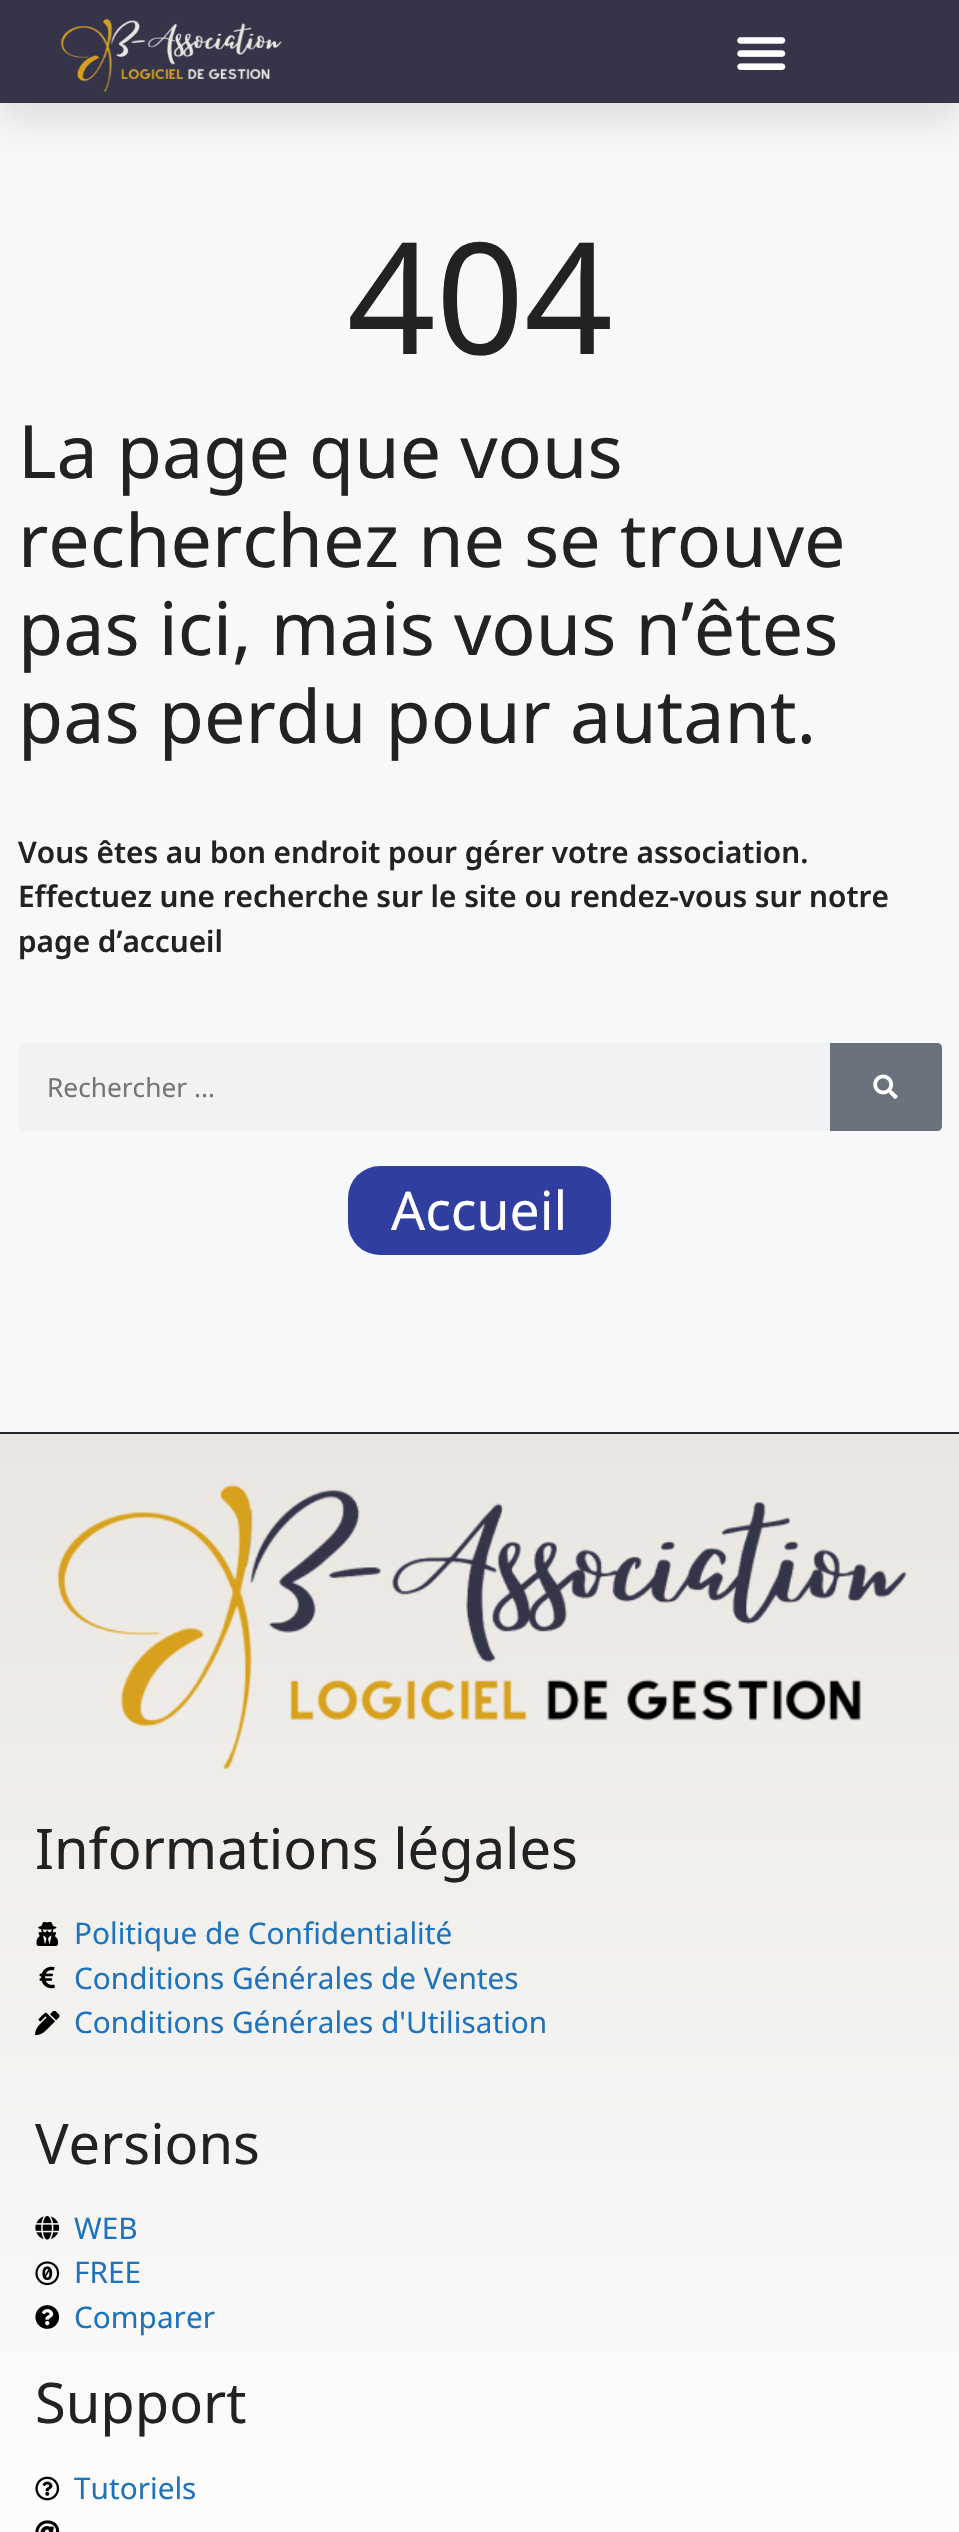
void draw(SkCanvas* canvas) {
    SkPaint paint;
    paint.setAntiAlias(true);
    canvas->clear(0xFFF7F8F9);
    paint.setColor(0x1A000000);
    paint.setMaskFilter(SkMaskFilter::MakeBlur(kNormal_SkBlurStyle, 17.5f));
    canvas->drawRect(SkRect::MakeXYWH(0, 18, 959, 103), paint);
    paint.setMaskFilter(nullptr);
    paint.setColor(0xFF353449);
    canvas->drawRect(SkRect::MakeXYWH(0, 0, 959, 103), paint);
    canvas->drawImageRect(SkImages::DeferredFromEncodedData(SkData::MakeFromFileName("img1.png")), SkRect::MakeXYWH(60, 18, 222, 74), SkSamplingOptions());
    canvas->drawImageRect(SkImages::DeferredFromEncodedData(SkData::MakeFromFileName("img2.png")), SkRect::MakeXYWH(737, 37, 49, 33), SkSamplingOptions());
    SkFont font1(fontMgr->matchFamilyStyle("Noto Sans", SkFontStyle::Normal()), 155);
    font1.setSubpixel(true);
    paint.setColor(0xFF222222);
    canvas->drawString("404", 347, 354, font1, paint);
    SkFont font2(fontMgr->matchFamilyStyle("Noto Sans", SkFontStyle::Normal()), 73.5f);
    font2.setSubpixel(true);
    canvas->drawString("La page que vous", 18, 478, font2, paint);
    canvas->drawString("recherchez ne se trouve", 18, 567, font2, paint);
    canvas->drawString("pas ici, mais vous n’êtes", 18, 655, font2, paint);
    canvas->drawString("pas perdu pour autant.", 18, 743, font2, paint);
    SkFont font3(fontMgr->matchFamilyStyle("Noto Sans", SkFontStyle(600, SkFontStyle::kNormal_Width, SkFontStyle::kUpright_Slant)), 29.75f);
    font3.setSubpixel(true);
    canvas->drawString("Vous êtes au bon endroit pour gérer votre association.", 18, 863, font3, paint);
    canvas->drawString("Effectuez une recherche sur le site ou rendez-vous sur notre", 18, 907, font3, paint);
    canvas->drawString("page d’accueil", 18, 952, font3, paint);
    paint.setColor(0xFFF1F2F3);
    canvas->drawRoundRect(SkRect::MakeXYWH(18, 1043, 924, 88), 5, 5, paint);
    SkFont font4(fontMgr->matchFamilyStyle("Noto Sans", SkFontStyle::Normal()), 26.25f);
    font4.setSubpixel(true);
    paint.setColor(0xFF757576);
    canvas->drawString("Rechercher ...", 47, 1097, font4, paint);
    paint.setColor(0xFF69727D);
    canvas->drawPath(SkPathBuilder().moveTo(830, 1043).lineTo(937, 1043).cubicTo(940, 1043, 942, 1045, 942, 1048).lineTo(942, 1126).cubicTo(942, 1129, 940, 1131, 937, 1131).lineTo(830, 1131).close().detach(), paint);
    canvas->drawImageRect(SkImages::DeferredFromEncodedData(SkData::MakeFromFileName("img3.png")), SkRect::MakeXYWH(873, 1074, 25, 25), SkSamplingOptions());
    paint.setColor(0xFF303F9F);
    canvas->drawRoundRect(SkRect::MakeXYWH(348, 1166, 263, 89), 32, 32, paint);
    SkFont font5(fontMgr->matchFamilyStyle("Noto Sans", SkFontStyle::Normal()), 53.5f);
    font5.setSubpixel(true);
    paint.setColor(0xFFFFFFFF);
    canvas->drawString("Accueil", 391, 1230, font5, paint);
    {
        const SkColor colors[] = {0xFFE9E6E1, 0xFFFFFEFE};
        const float stops[] = {0, 1};
        const SkPoint ends[] = {{479, 1433}, {480, 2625}};
        paint.setShader(SkGradientShader::MakeLinear(ends, colors, stops, 2, SkTileMode::kClamp));
        paint.setAlpha(255);
    }
    canvas->drawRect(SkRect::MakeXYWH(0, 1434, 959, 1098), paint);
    paint.setShader(nullptr);
    paint.setColor(0xFF232331);
    canvas->drawRect(SkRect::MakeXYWH(0, 1432, 959, 2), paint);
    canvas->drawImageRect(SkImages::DeferredFromEncodedData(SkData::MakeFromFileName("img4.png")), SkRect::MakeXYWH(57, 1484, 850, 287), SkSamplingOptions());
    SkFont font6(fontMgr->matchFamilyStyle("Noto Sans", SkFontStyle::Normal()), 56);
    font6.setSubpixel(true);
    paint.setColor(0xFF222222);
    canvas->drawString("Informations légales", 35, 1869, font6, paint);
    canvas->drawImageRect(SkImages::DeferredFromEncodedData(SkData::MakeFromFileName("img5.png")), SkRect::MakeXYWH(36, 1922, 22, 24), SkSamplingOptions());
    SkFont font7(fontMgr->matchFamilyStyle("Noto Sans", SkFontStyle::Normal()), 29.75f);
    font7.setSubpixel(true);
    paint.setColor(0xFF1E73BE);
    canvas->drawString("Politique de Confidentialité", 74, 1944, font7, paint);
    canvas->drawImageRect(SkImages::DeferredFromEncodedData(SkData::MakeFromFileName("img6.png")), SkRect::MakeXYWH(39, 1966, 16, 23), SkSamplingOptions());
    canvas->drawString("Conditions Générales de Ventes", 74, 1989, font7, paint);
    canvas->drawImageRect(SkImages::DeferredFromEncodedData(SkData::MakeFromFileName("img7.png")), SkRect::MakeXYWH(35, 2011, 25, 24), SkSamplingOptions());
    canvas->drawString("Conditions Générales d'Utilisation", 74, 2033, font7, paint);
    paint.setColor(0xFF222222);
    canvas->drawString("Versions", 35, 2164, font6, paint);
    canvas->drawImageRect(SkImages::DeferredFromEncodedData(SkData::MakeFromFileName("img8.png")), SkRect::MakeXYWH(35, 2216, 25, 24), SkSamplingOptions());
    paint.setColor(0xFF1E73BE);
    canvas->drawString("WEB", 74, 2239, font7, paint);
    canvas->drawImageRect(SkImages::DeferredFromEncodedData(SkData::MakeFromFileName("img9.png")), SkRect::MakeXYWH(35, 2261, 25, 25), SkSamplingOptions());
    canvas->drawString("FREE", 74, 2283, font7, paint);
    canvas->drawImageRect(SkImages::DeferredFromEncodedData(SkData::MakeFromFileName("img10.png")), SkRect::MakeXYWH(35, 2305, 25, 24), SkSamplingOptions());
    canvas->drawString("Comparer", 74, 2328, font7, paint);
    paint.setColor(0xFF222222);
    canvas->drawString("Support", 35, 2423, font6, paint);
    canvas->drawImageRect(SkImages::DeferredFromEncodedData(SkData::MakeFromFileName("img11.png")), SkRect::MakeXYWH(35, 2476, 25, 25), SkSamplingOptions());
    paint.setColor(0xFF1E73BE);
    canvas->drawString("Tutoriels", 74, 2499, font7, paint);
    canvas->drawImageRect(SkImages::DeferredFromEncodedData(SkData::MakeFromFileName("img12.png")), SkRect::MakeXYWH(35, 2520, 25, 12), SkSamplingOptions());
}
